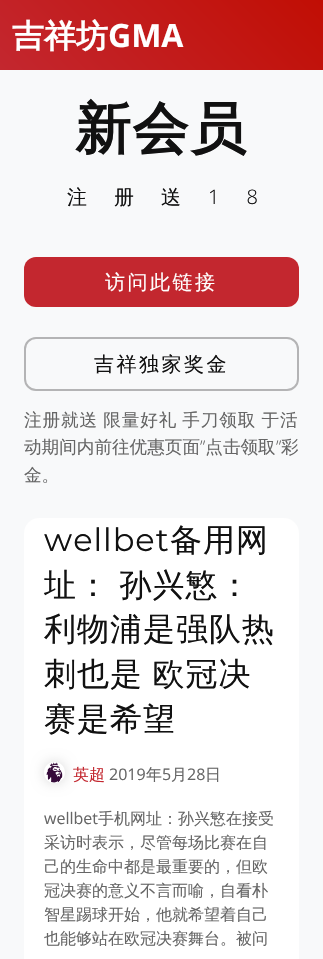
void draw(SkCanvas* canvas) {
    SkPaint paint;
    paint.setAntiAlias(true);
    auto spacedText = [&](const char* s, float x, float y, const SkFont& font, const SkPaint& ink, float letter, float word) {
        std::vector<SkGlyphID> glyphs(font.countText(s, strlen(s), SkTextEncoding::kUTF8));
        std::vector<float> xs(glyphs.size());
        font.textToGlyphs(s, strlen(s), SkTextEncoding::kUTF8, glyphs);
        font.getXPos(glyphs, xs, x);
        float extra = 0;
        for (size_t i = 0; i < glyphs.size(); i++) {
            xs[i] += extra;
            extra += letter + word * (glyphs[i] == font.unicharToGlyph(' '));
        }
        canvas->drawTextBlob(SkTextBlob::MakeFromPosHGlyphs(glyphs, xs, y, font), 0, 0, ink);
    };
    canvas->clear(0xFFFFFFFF);
    {
        const SkColor colors[] = {0xFFC3272F, 0xFFC10E04};
        const float stops[] = {0, 1};
        const SkPoint ends[] = {{63, 133}, {260, -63}};
        paint.setShader(SkGradientShader::MakeLinear(ends, colors, stops, 2, SkTileMode::kClamp));
        paint.setAlpha(255);
    }
    canvas->drawRect(SkRect::MakeXYWH(0, 0, 323, 70), paint);
    SkFont font1(fontMgr->matchFamilyStyle("WenQuanYi Zen Hei", SkFontStyle::Bold()), 32);
    font1.setSubpixel(true);
    paint.setShader(nullptr);
    paint.setColor(0xFFFFFFFF);
    canvas->drawString("吉祥坊", 12, 47, font1, paint);
    SkFont font2(fontMgr->matchFamilyStyle("Open Sans", SkFontStyle::Bold()), 32);
    font2.setSubpixel(true);
    canvas->drawString("GMA", 108, 47, font2, paint);
    paint.setColor(0xFFF8F9FA);
    canvas->drawRect(SkRect::MakeXYWH(0, 70, 323, 889), paint);
    SkFont font3(fontMgr->matchFamilyStyle("WenQuanYi Zen Hei", SkFontStyle::Bold()), 56);
    font3.setSubpixel(true);
    paint.setColor(0xFF111111);
    spacedText("新会员", 75, 148, font3, paint, 1.5f, 0);
    SkFont font4(fontMgr->matchFamilyStyle("WenQuanYi Zen Hei", SkFontStyle(500, SkFontStyle::kNormal_Width, SkFontStyle::kUpright_Slant)), 20);
    font4.setSubpixel(true);
    spacedText("注册送", 67, 204, font4, paint, 27, 0);
    SkFont font5(fontMgr->matchFamilyStyle("Open Sans", SkFontStyle(300, SkFontStyle::kNormal_Width, SkFontStyle::kUpright_Slant)), 20);
    font5.setSubpixel(true);
    spacedText("18", 208, 204, font5, paint, 27, 0);
    paint.setColor(0xFFC3272F);
    canvas->drawRoundRect(SkRect::MakeXYWH(24, 257, 275, 50), 12, 12, paint);
    paint.setColor(0xFFFFFFFF);
    spacedText("访问此链接", 105, 289, font4, paint, 2.5f, 0);
    paint.setStyle(SkPaint::kStroke_Style);
    paint.setStrokeWidth(2);
    paint.setColor(0xFFB4B4B5);
    canvas->drawRoundRect(SkRect::MakeXYWH(25, 338, 273, 52), 11, 11, paint);
    paint.setStyle(SkPaint::kFill_Style);
    paint.setColor(0xFF111111);
    spacedText("吉祥独家奖金", 94, 371, font4, paint, 2.5f, 0);
    SkFont font6(fontMgr->matchFamilyStyle("WenQuanYi Zen Hei", SkFontStyle(500, SkFontStyle::kNormal_Width, SkFontStyle::kUpright_Slant)), 17.6f);
    font6.setSubpixel(true);
    paint.setColor(0xFF666666);
    spacedText("注册就送 限量好礼 手刀领取 于活", 24, 426, font6, paint, 0.9f, -1);
    canvas->drawString("动期间内前往优惠页面 点击领取", 24, 453, font6, paint);
    SkFont font7(fontMgr->matchFamilyStyle("Open Sans", SkFontStyle(300, SkFontStyle::kNormal_Width, SkFontStyle::kUpright_Slant)), 17.6f);
    font7.setSubpixel(true);
    canvas->drawString("”", 276, 453, font7, paint);
    canvas->drawString("彩", 281, 453, font6, paint);
    canvas->drawString("”", 200, 453, font7, paint);
    canvas->drawString("金。", 24, 481, font6, paint);
    paint.setColor(0xFFFFFFFF);
    canvas->drawRoundRect(SkRect::MakeXYWH(24, 518, 275, 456), 15, 15, paint);
    SkFont font8(fontMgr->matchFamilyStyle("Montserrat", SkFontStyle::Normal()), 32);
    font8.setSubpixel(true);
    paint.setColor(0xFF111111);
    spacedText("wellbet", 44, 551, font8, paint, 1, 0);
    SkFont font9(fontMgr->matchFamilyStyle("WenQuanYi Zen Hei", SkFontStyle(500, SkFontStyle::kNormal_Width, SkFontStyle::kUpright_Slant)), 32);
    font9.setSubpixel(true);
    spacedText("备用网", 170, 551, font9, paint, 1, 0);
    spacedText("址： 孙兴慜：", 44, 596, font9, paint, 1, -1);
    spacedText("利物浦是强队热", 44, 640, font9, paint, 1, 0);
    spacedText("刺也是 欧冠决", 44, 685, font9, paint, 1, -1);
    spacedText("赛是希望", 44, 730, font9, paint, 1, 0);
    canvas->save();
    canvas->clipPath(SkPathBuilder(SkPathFillType::kEvenOdd).moveTo(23, 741).lineTo(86, 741).lineTo(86, 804).lineTo(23, 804).close().moveTo(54.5f, 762).cubicTo(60.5f, 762, 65, 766.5f, 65, 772.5f).cubicTo(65, 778.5f, 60.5f, 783, 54.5f, 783).cubicTo(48.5f, 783, 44, 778.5f, 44, 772.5f).cubicTo(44, 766.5f, 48.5f, 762, 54.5f, 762).close().detach(), true);
    paint.setColor(0x33000000);
    paint.setMaskFilter(SkMaskFilter::MakeBlur(kNormal_SkBlurStyle, 7));
    canvas->drawRoundRect(SkRect::MakeXYWH(45, 763, 19, 19), 9.5f, 9.5f, paint);
    paint.setMaskFilter(nullptr);
    canvas->restore();
    canvas->drawImageRect(SkImages::DeferredFromEncodedData(SkData::MakeFromFileName("img1.png")), SkRect::MakeXYWH(46, 762, 17, 21), SkSamplingOptions());
    SkFont font10(fontMgr->matchFamilyStyle("WenQuanYi Zen Hei", SkFontStyle(500, SkFontStyle::kNormal_Width, SkFontStyle::kUpright_Slant)), 16);
    font10.setSubpixel(true);
    paint.setColor(0xFFC3272F);
    canvas->drawString("英超", 73, 780, font10, paint);
    SkFont font11(fontMgr->matchFamilyStyle("Open Sans", SkFontStyle::Normal()), 16);
    font11.setSubpixel(true);
    paint.setColor(0xFF666666);
    canvas->drawString("2019", 109, 780, font11, paint);
    canvas->drawString("年", 146, 780, font10, paint);
    canvas->drawString("5", 162, 780, font11, paint);
    canvas->drawString("月", 171, 780, font10, paint);
    canvas->drawString("28", 187, 780, font11, paint);
    canvas->drawString("日", 205, 780, font10, paint);
    canvas->drawString("wellbet", 44, 824, font11, paint);
    canvas->drawString("手机网址：孙兴慜在接受", 98, 824, font10, paint);
    canvas->drawString("采访时表示，尽管每场比赛在自", 44, 848, font10, paint);
    canvas->drawString("己的生命中都是最重要的，但欧", 44, 872, font10, paint);
    canvas->drawString("冠决赛的意义不言而喻，自看朴", 44, 896, font10, paint);
    canvas->drawString("智星踢球开始，他就希望着自己", 44, 920, font10, paint);
    canvas->drawString("也能够站在欧冠决赛舞台。被问", 44, 944, font10, paint);
}
